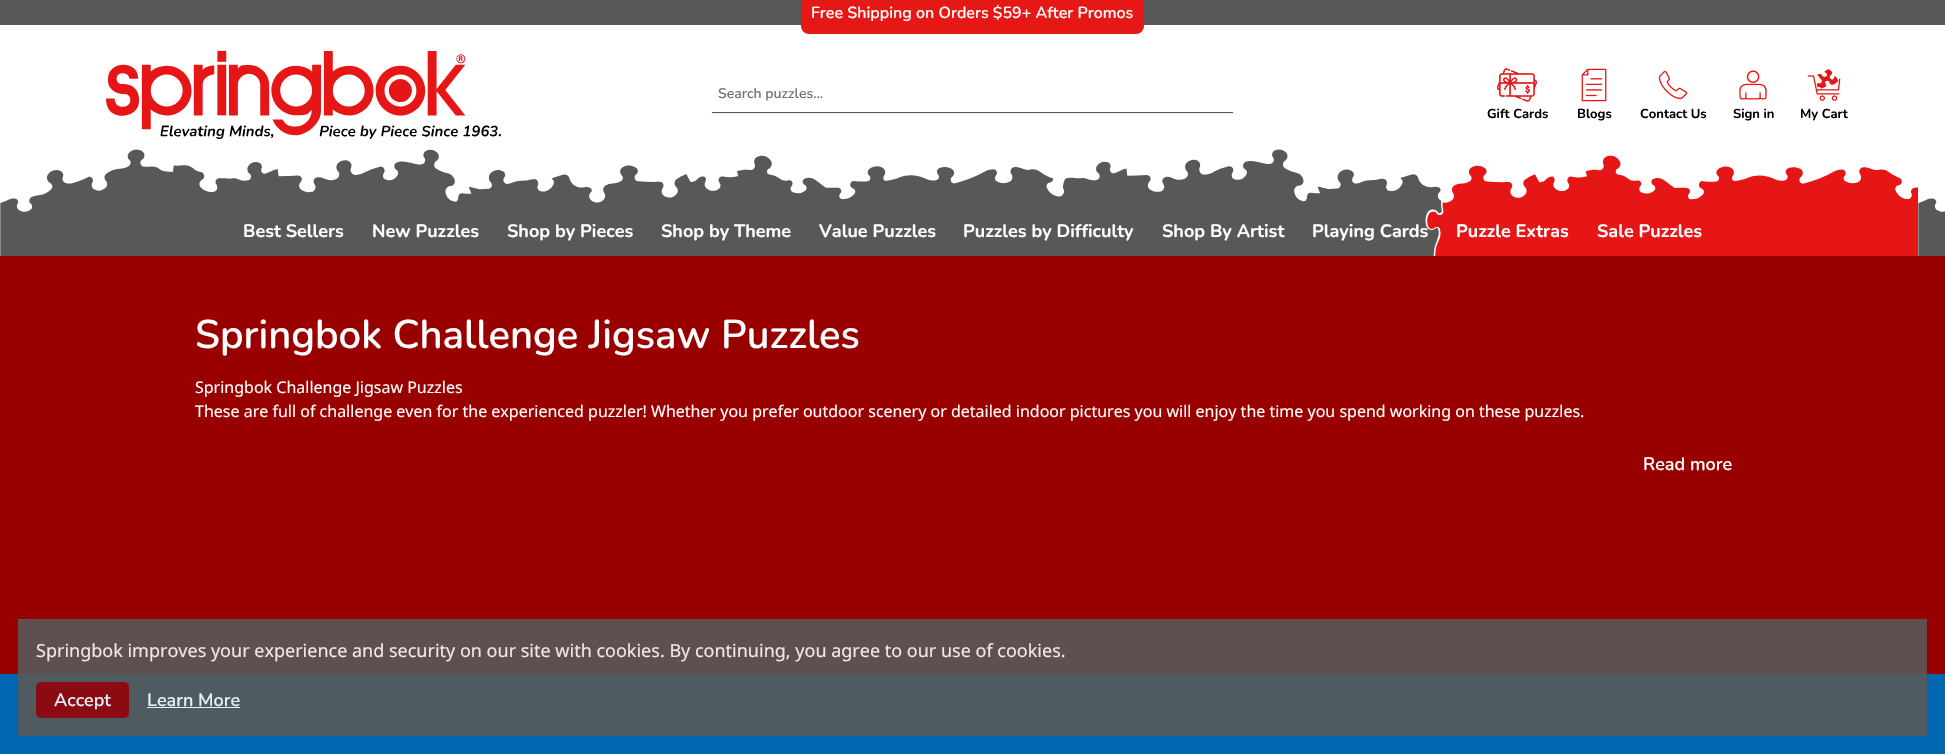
void draw(SkCanvas* canvas) {
    SkPaint paint;
    paint.setAntiAlias(true);
    canvas->clear(0xFFFFFFFF);
    paint.setColor(0xFF585858);
    canvas->drawRect(SkRect::MakeXYWH(0, 0, 1945, 25), paint);
    paint.setColor(0xFFE61816);
    canvas->drawRoundRect(SkRect::MakeXYWH(801, -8, 343, 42), 8, 8, paint);
    SkFont font1(fontMgr->matchFamilyStyle("Nunito", SkFontStyle(600, SkFontStyle::kNormal_Width, SkFontStyle::kUpright_Slant)), 16);
    font1.setSubpixel(true);
    paint.setColor(0xFFFFFFFF);
    canvas->drawString("Free Shipping on Orders $59+ After Promos", 811, 18, font1, paint);
    canvas->drawImageRect(SkImages::DeferredFromEncodedData(SkData::MakeFromFileName("img1.png")), SkRect::MakeXYWH(106, 50, 395, 89), SkSamplingOptions());
    paint.setColor(0xFFEEEEEE);
    canvas->drawRect(SkRect::MakeXYWH(710, 113, 525, 1), paint);
    paint.setColor(0xFF585858);
    canvas->drawRect(SkRect::MakeXYWH(712, 112, 521, 1), paint);
    SkFont font2(fontMgr->matchFamilyStyle("Nunito", SkFontStyle(600, SkFontStyle::kNormal_Width, SkFontStyle::kUpright_Slant)), 14);
    font2.setSubpixel(true);
    paint.setColor(0xFF757575);
    canvas->drawString("Search puzzles...", 718, 98, font2, paint);
    canvas->drawImageRect(SkImages::DeferredFromEncodedData(SkData::MakeFromFileName("img2.png")), SkRect::MakeXYWH(1497, 68, 40, 34), SkSamplingOptions());
    SkFont font3(fontMgr->matchFamilyStyle("Nunito", SkFontStyle::Bold()), 13);
    font3.setSubpixel(true);
    paint.setColor(0xFF000000);
    canvas->drawString("Gift Cards", 1487, 118, font3, paint);
    canvas->drawImageRect(SkImages::DeferredFromEncodedData(SkData::MakeFromFileName("img3.png")), SkRect::MakeXYWH(1581, 68, 26, 34), SkSamplingOptions());
    canvas->drawString("Blogs", 1577, 118, font3, paint);
    canvas->drawImageRect(SkImages::DeferredFromEncodedData(SkData::MakeFromFileName("img4.png")), SkRect::MakeXYWH(1658, 70, 30, 30), SkSamplingOptions());
    canvas->drawString("Contact Us", 1640, 118, font3, paint);
    canvas->drawImageRect(SkImages::DeferredFromEncodedData(SkData::MakeFromFileName("img5.png")), SkRect::MakeXYWH(1739, 70, 28, 30), SkSamplingOptions());
    canvas->drawString("Sign in", 1733, 118, font3, paint);
    canvas->drawImageRect(SkImages::DeferredFromEncodedData(SkData::MakeFromFileName("img6.png")), SkRect::MakeXYWH(1807, 69, 34, 32), SkSamplingOptions());
    canvas->drawString("My Cart", 1800, 118, font3, paint);
    canvas->drawImageRect(SkImages::DeferredFromEncodedData(SkData::MakeFromFileName("img7.png")), SkRect::MakeXYWH(0, 149, 1945, 107), SkSamplingOptions());
    SkFont font4(fontMgr->matchFamilyStyle("Nunito", SkFontStyle::Bold()), 18);
    font4.setSubpixel(true);
    paint.setColor(0xFFFFFFFF);
    canvas->drawString("Best Sellers", 243, 237, font4, paint);
    canvas->drawString("New Puzzles", 372, 237, font4, paint);
    canvas->drawString("Shop by Pieces", 507, 237, font4, paint);
    canvas->drawString("Shop by Theme", 661, 237, font4, paint);
    canvas->drawString("Value Puzzles", 819, 237, font4, paint);
    canvas->drawString("Puzzles by Difficulty", 963, 237, font4, paint);
    canvas->drawString("Shop By Artist", 1162, 237, font4, paint);
    canvas->drawString("Playing Cards", 1312, 237, font4, paint);
    canvas->drawString("Puzzle Extras", 1456, 237, font4, paint);
    canvas->drawString("Sale Puzzles", 1597, 237, font4, paint);
    paint.setColor(0xFF990100);
    canvas->drawRect(SkRect::MakeXYWH(0, 256, 1945, 418), paint);
    SkFont font5(fontMgr->matchFamilyStyle("Nunito", SkFontStyle(600, SkFontStyle::kNormal_Width, SkFontStyle::kUpright_Slant)), 40);
    font5.setSubpixel(true);
    paint.setColor(0xFFFFFFFF);
    canvas->drawString("Springbok Challenge Jigsaw Puzzles", 195, 348, font5, paint);
    SkFont font6(fontMgr->matchFamilyStyle("Noto Sans", SkFontStyle::Normal()), 16);
    font6.setSubpixel(true);
    canvas->drawString("Springbok Challenge Jigsaw Puzzles", 195, 393, font6, paint);
    canvas->drawString("These are full of challenge even for the experienced puzzler! Whether you prefer outdoor scenery or detailed indoor pictures you will enjoy the time you spend working on these puzzles.", 195, 417, font6, paint);
    SkFont font7(fontMgr->matchFamilyStyle("Nunito", SkFontStyle(600, SkFontStyle::kNormal_Width, SkFontStyle::kUpright_Slant)), 18);
    font7.setSubpixel(true);
    canvas->drawString("Read more", 1643, 470, font7, paint);
    paint.setColor(0xFF0167B1);
    canvas->drawRect(SkRect::MakeXYWH(0, 674, 1945, 80), paint);
    paint.setColor(0xE6585858);
    canvas->drawRect(SkRect::MakeXYWH(18, 619, 1909, 117), paint);
    SkFont font8(fontMgr->matchFamilyStyle("Noto Sans", SkFontStyle::Normal()), 18);
    font8.setSubpixel(true);
    paint.setColor(0xFFF5E6E6);
    canvas->drawString("Springbok improves your experience and security on our site with cookies. By continuing, you agree to our use of cookies.", 36, 657, font8, paint);
    paint.setColor(0xFF8A0B12);
    canvas->drawRoundRect(SkRect::MakeXYWH(36, 682, 93, 36), 5, 5, paint);
    paint.setColor(0xFFE6F0F7);
    canvas->drawString("Accept", 54, 706, font7, paint);
    canvas->drawString("Learn More", 147, 706, font7, paint);
    canvas->drawRect(SkRect::MakeXYWH(147, 707, 93, 1), paint);
}
